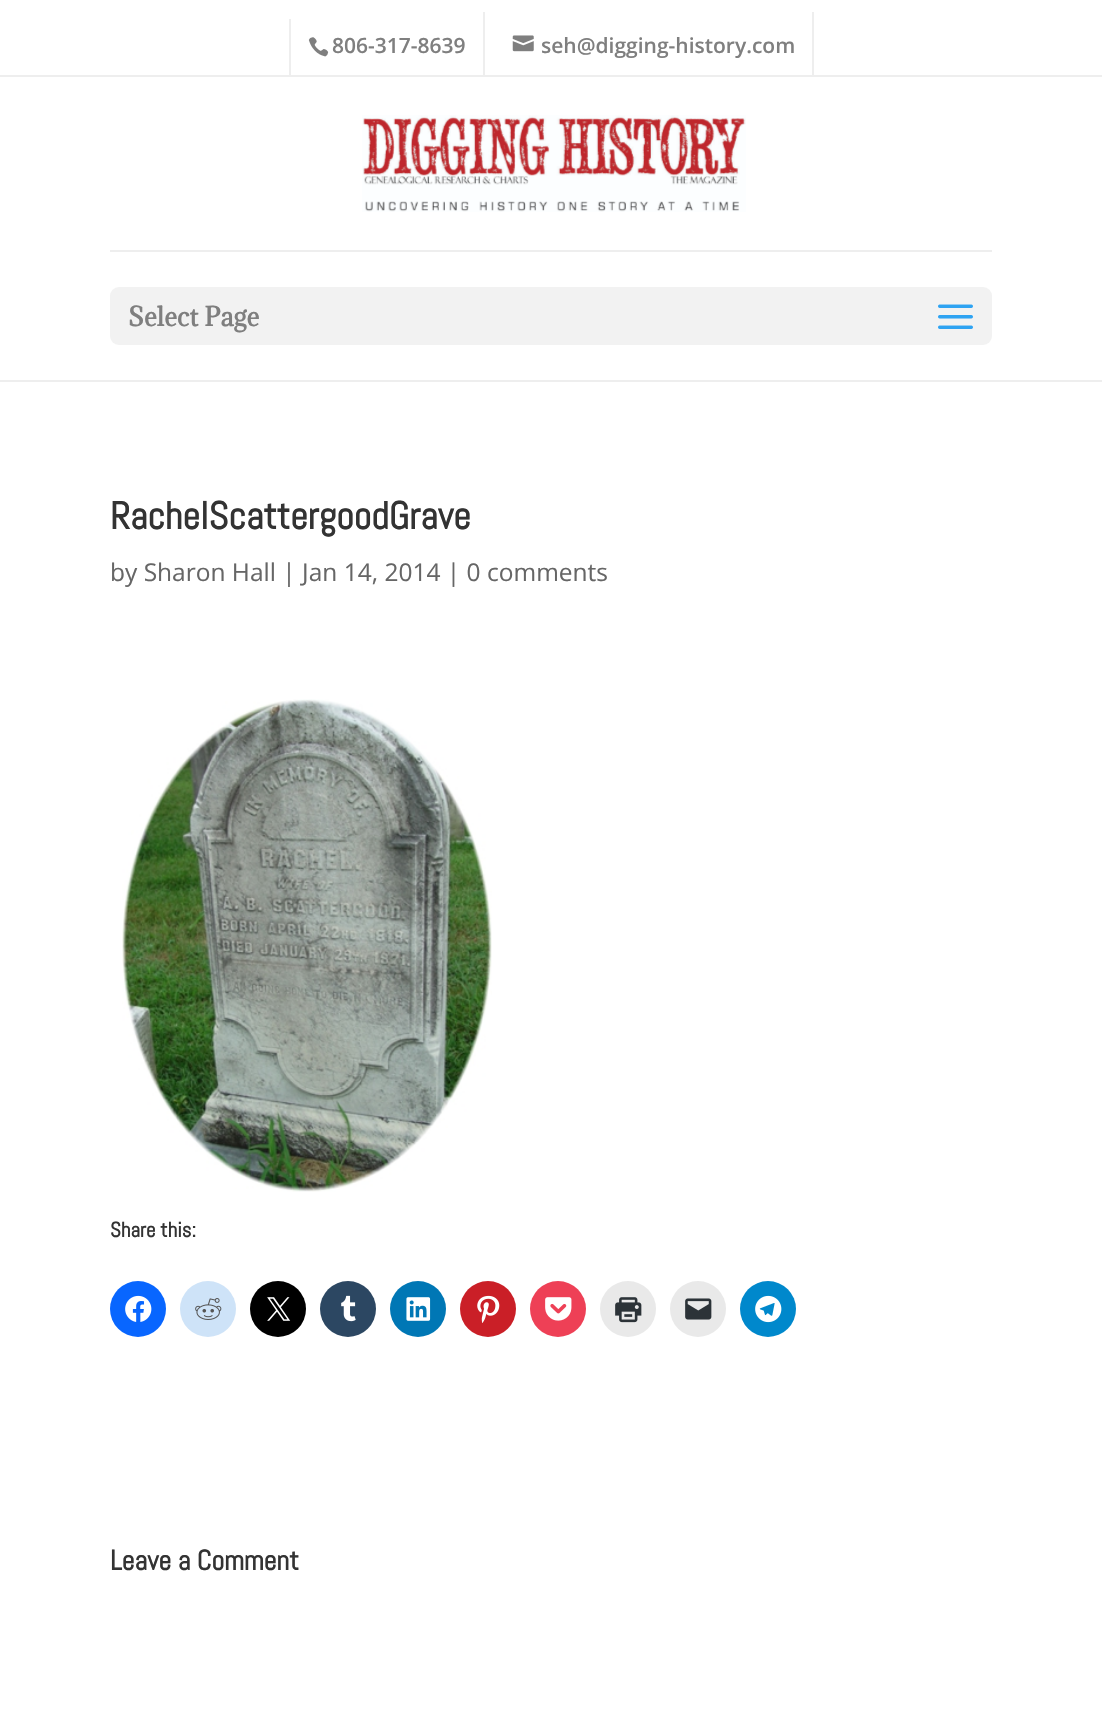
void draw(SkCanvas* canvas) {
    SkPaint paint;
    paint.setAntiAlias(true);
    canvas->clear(0xFFFFFFFF);
    paint.setColor(0xFFEEEEEE);
    canvas->drawRect(SkRect::MakeXYWH(0, 75, 1102, 2), paint);
    canvas->drawImageRect(SkImages::DeferredFromEncodedData(SkData::MakeFromFileName("img1.png")), SkRect::MakeXYWH(308, 37, 21, 20), SkSamplingOptions());
    SkFont font1(fontMgr->matchFamilyStyle("Open Sans", SkFontStyle(600, SkFontStyle::kNormal_Width, SkFontStyle::kUpright_Slant)), 21);
    font1.setSubpixel(true);
    paint.setColor(0xFF7F7F7F);
    canvas->drawString("806-317-8639", 332, 53, font1, paint);
    paint.setColor(0xFFEEEEEE);
    canvas->drawRect(SkRect::MakeXYWH(289, 19, 2, 56), paint);
    canvas->drawRect(SkRect::MakeXYWH(483, 12, 2, 65), paint);
    canvas->drawImageRect(SkImages::DeferredFromEncodedData(SkData::MakeFromFileName("img2.png")), SkRect::MakeXYWH(512, 35, 22, 17), SkSamplingOptions());
    paint.setColor(0xFF7F7F7F);
    canvas->drawString("seh@digging-history.com", 541, 53, font1, paint);
    paint.setColor(0xFFEEEEEE);
    canvas->drawRect(SkRect::MakeXYWH(812, 12, 2, 65), paint);
    canvas->drawRect(SkRect::MakeXYWH(0, 380, 1102, 2), paint);
    canvas->drawImageRect(SkImages::DeferredFromEncodedData(SkData::MakeFromFileName("img3.png")), SkRect::MakeXYWH(362, 115, 384, 97), SkSamplingOptions());
    canvas->drawRect(SkRect::MakeXYWH(110, 250, 882, 2), paint);
    paint.setColor(0xFFF2F2F2);
    canvas->drawRoundRect(SkRect::MakeXYWH(110, 287, 882, 58), 9, 9, paint);
    SkFont font2(fontMgr->matchFamilyStyle("Adamina", SkFontStyle::Bold()), 24.5f);
    font2.setSubpixel(true);
    paint.setColor(0xFF7F7F7F);
    canvas->drawString("Select Page", 128, 326, font2, paint);
    canvas->drawImageRect(SkImages::DeferredFromEncodedData(SkData::MakeFromFileName("img4.png")), SkRect::MakeXYWH(938, 304, 35, 25), SkSamplingOptions());
    SkFont font3(fontMgr->matchFamilyStyle("Abel", SkFontStyle::Bold()), 38.5f);
    font3.setSubpixel(true);
    paint.setColor(0xFF333333);
    canvas->drawString("RachelScattergoodGrave", 110, 529, font3, paint);
    SkFont font4(fontMgr->matchFamilyStyle("Open Sans", SkFontStyle::Normal()), 24.5f);
    font4.setSubpixel(true);
    paint.setColor(0xFF666666);
    canvas->drawString("by Sharon Hall | Jan 14, 2014 | 0 comments", 110, 581, font4, paint);
    canvas->drawImageRect(SkImages::DeferredFromEncodedData(SkData::MakeFromFileName("img5.png")), SkRect::MakeXYWH(122, 699, 370, 493), SkSamplingOptions());
    SkFont font5(fontMgr->matchFamilyStyle("Abel", SkFontStyle::Bold()), 21);
    font5.setSubpixel(true);
    paint.setColor(0xFF333333);
    canvas->drawString("Share this:", 110, 1237, font5, paint);
    paint.setColor(0xFF0866FF);
    canvas->drawCircle(138, 1309, 28, paint);
    canvas->drawImageRect(SkImages::DeferredFromEncodedData(SkData::MakeFromFileName("img6.png")), SkRect::MakeXYWH(125, 1295, 27, 27), SkSamplingOptions());
    paint.setColor(0xFFCEE3F8);
    canvas->drawCircle(208, 1309, 28, paint);
    canvas->drawImageRect(SkImages::DeferredFromEncodedData(SkData::MakeFromFileName("img7.png")), SkRect::MakeXYWH(195, 1298, 27, 22), SkSamplingOptions());
    paint.setColor(0xFF000000);
    canvas->drawCircle(278, 1309, 28, paint);
    canvas->drawImageRect(SkImages::DeferredFromEncodedData(SkData::MakeFromFileName("img8.png")), SkRect::MakeXYWH(267, 1297, 24, 24), SkSamplingOptions());
    paint.setColor(0xFF2C4762);
    canvas->drawCircle(348, 1309, 28, paint);
    canvas->drawImageRect(SkImages::DeferredFromEncodedData(SkData::MakeFromFileName("img9.png")), SkRect::MakeXYWH(341, 1295, 15, 27), SkSamplingOptions());
    paint.setColor(0xFF0077B5);
    canvas->drawCircle(418, 1309, 28, paint);
    canvas->drawImageRect(SkImages::DeferredFromEncodedData(SkData::MakeFromFileName("img10.png")), SkRect::MakeXYWH(406, 1297, 25, 24), SkSamplingOptions());
    paint.setColor(0xFFCA1F27);
    canvas->drawCircle(488, 1309, 28, paint);
    canvas->drawImageRect(SkImages::DeferredFromEncodedData(SkData::MakeFromFileName("img11.png")), SkRect::MakeXYWH(477, 1295, 23, 28), SkSamplingOptions());
    paint.setColor(0xFFEE4056);
    canvas->drawCircle(558, 1309, 28, paint);
    canvas->drawImageRect(SkImages::DeferredFromEncodedData(SkData::MakeFromFileName("img12.png")), SkRect::MakeXYWH(545, 1297, 27, 24), SkSamplingOptions());
    paint.setColor(0xFFE9E9E9);
    canvas->drawCircle(628, 1309, 28, paint);
    canvas->drawImageRect(SkImages::DeferredFromEncodedData(SkData::MakeFromFileName("img13.png")), SkRect::MakeXYWH(615, 1297, 27, 26), SkSamplingOptions());
    canvas->drawCircle(698, 1309, 28, paint);
    canvas->drawImageRect(SkImages::DeferredFromEncodedData(SkData::MakeFromFileName("img14.png")), SkRect::MakeXYWH(685, 1298, 27, 22), SkSamplingOptions());
    paint.setColor(0xFF0088CC);
    canvas->drawCircle(768, 1309, 28, paint);
    canvas->drawImageRect(SkImages::DeferredFromEncodedData(SkData::MakeFromFileName("img15.png")), SkRect::MakeXYWH(755, 1295, 27, 28), SkSamplingOptions());
    SkFont font6(fontMgr->matchFamilyStyle("Abel", SkFontStyle::Bold()), 28);
    font6.setSubpixel(true);
    paint.setColor(0xFF333333);
    canvas->drawString("Leave a Comment", 110, 1570, font6, paint);
}
